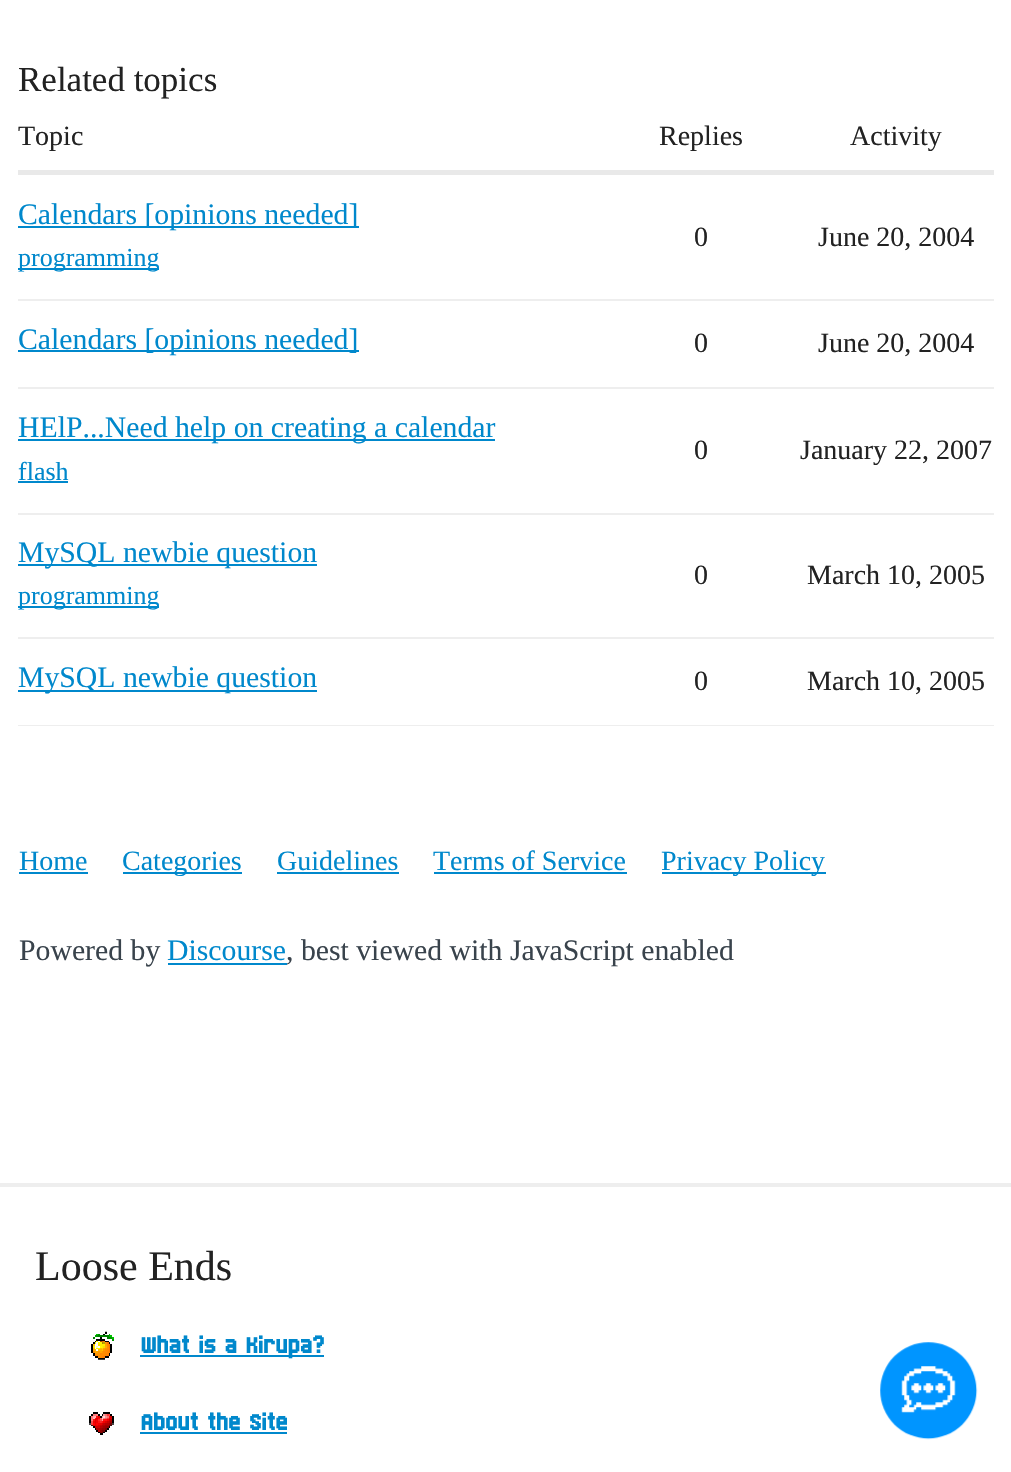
void draw(SkCanvas* canvas) {
    SkPaint paint;
    paint.setAntiAlias(true);
    canvas->clear(0xFFFFFFFF);
    SkFont font1(fontMgr->matchFamilyStyle("Liberation Serif", SkFontStyle::Normal()), 35);
    font1.setSubpixel(true);
    paint.setColor(0xFF222222);
    canvas->drawString("Related topics", 18, 91, font1, paint);
    SkFont font2(fontMgr->matchFamilyStyle("Liberation Serif", SkFontStyle::Normal()), 28);
    font2.setSubpixel(true);
    canvas->drawString("Topic", 18, 145, font2, paint);
    canvas->drawString("Replies", 659, 145, font2, paint);
    canvas->drawString("Activity", 850, 145, font2, paint);
    paint.setColor(0xFFE9E9E9);
    canvas->drawRect(SkRect::MakeXYWH(18, 170, 976, 5), paint);
    paint.setColor(0xFF0088CC);
    canvas->drawRect(SkRect::MakeXYWH(18, 226, 341, 2), paint);
    SkFont font3(fontMgr->matchFamilyStyle("Liberation Serif", SkFontStyle::Normal()), 29.75f);
    font3.setSubpixel(true);
    canvas->drawString("Calendars [opinions needed]", 18, 224, font3, paint);
    canvas->drawRect(SkRect::MakeXYWH(18, 268, 141, 2), paint);
    SkFont font4(fontMgr->matchFamilyStyle("Liberation Serif", SkFontStyle::Normal()), 26);
    font4.setSubpixel(true);
    canvas->drawString("programming", 18, 266, font4, paint);
    paint.setColor(0xFF222222);
    canvas->drawString("0", 694, 246, font2, paint);
    paint.setColor(0xFFEEEEEE);
    canvas->drawRect(SkRect::MakeXYWH(18, 299, 976, 2), paint);
    paint.setColor(0xFF222222);
    canvas->drawString("June 20, 2004", 818, 246, font2, paint);
    paint.setColor(0xFF0088CC);
    canvas->drawRect(SkRect::MakeXYWH(18, 350, 341, 2), paint);
    canvas->drawString("Calendars [opinions needed]", 18, 349, font3, paint);
    paint.setColor(0xFF222222);
    canvas->drawString("0", 694, 352, font2, paint);
    paint.setColor(0xFFEEEEEE);
    canvas->drawRect(SkRect::MakeXYWH(18, 387, 976, 2), paint);
    paint.setColor(0xFF222222);
    canvas->drawString("June 20, 2004", 818, 352, font2, paint);
    paint.setColor(0xFF0088CC);
    canvas->drawRect(SkRect::MakeXYWH(18, 439, 477, 2), paint);
    canvas->drawString("HElP...Need help on creating a calendar", 18, 437, font3, paint);
    canvas->drawString("flash", 18, 480, font4, paint);
    canvas->drawRect(SkRect::MakeXYWH(18, 481, 50, 2), paint);
    paint.setColor(0xFF222222);
    canvas->drawString("0", 694, 459, font2, paint);
    paint.setColor(0xFFEEEEEE);
    canvas->drawRect(SkRect::MakeXYWH(18, 513, 976, 2), paint);
    paint.setColor(0xFF222222);
    canvas->drawString("January 22, 2007", 800, 459, font2, paint);
    paint.setColor(0xFF0088CC);
    canvas->drawRect(SkRect::MakeXYWH(18, 564, 299, 2), paint);
    canvas->drawString("MySQL newbie question", 18, 562, font3, paint);
    canvas->drawRect(SkRect::MakeXYWH(18, 606, 141, 2), paint);
    canvas->drawString("programming", 18, 604, font4, paint);
    paint.setColor(0xFF222222);
    canvas->drawString("0", 694, 584, font2, paint);
    paint.setColor(0xFFEEEEEE);
    canvas->drawRect(SkRect::MakeXYWH(18, 637, 976, 2), paint);
    paint.setColor(0xFF222222);
    canvas->drawString("March 10, 2005", 807, 584, font2, paint);
    paint.setColor(0xFF0088CC);
    canvas->drawRect(SkRect::MakeXYWH(18, 690, 299, 2), paint);
    canvas->drawString("MySQL newbie question", 18, 687, font3, paint);
    paint.setColor(0xFF222222);
    canvas->drawString("0", 694, 690, font2, paint);
    paint.setColor(0xFFEEEEEE);
    canvas->drawRect(SkRect::MakeXYWH(18, 725, 976, 1), paint);
    paint.setColor(0xFF222222);
    canvas->drawString("March 10, 2005", 807, 690, font2, paint);
    paint.setColor(0xFF0088CC);
    canvas->drawString("Home", 19, 870, font2, paint);
    canvas->drawRect(SkRect::MakeXYWH(19, 872, 69, 2), paint);
    canvas->drawRect(SkRect::MakeXYWH(123, 872, 119, 2), paint);
    canvas->drawString("Categories", 122, 870, font2, paint);
    canvas->drawString("Guidelines", 277, 870, font2, paint);
    canvas->drawRect(SkRect::MakeXYWH(277, 872, 122, 2), paint);
    canvas->drawString("Terms of Service", 433, 870, font2, paint);
    canvas->drawRect(SkRect::MakeXYWH(434, 872, 193, 2), paint);
    canvas->drawRect(SkRect::MakeXYWH(662, 872, 164, 2), paint);
    canvas->drawString("Privacy Policy", 661, 870, font2, paint);
    paint.setColor(0xFF39434C);
    canvas->drawString("Powered by", 19, 960, font3, paint);
    paint.setColor(0xFF0088CC);
    canvas->drawString("Discourse", 167, 960, font3, paint);
    canvas->drawRect(SkRect::MakeXYWH(168, 963, 119, 2), paint);
    paint.setColor(0xFF39434C);
    canvas->drawString(", best viewed with JavaScript enabled", 286, 960, font3, paint);
    paint.setColor(0xFFEEEEEE);
    canvas->drawRect(SkRect::MakeXYWH(0, 1183, 1011, 4), paint);
    SkFont font5(fontMgr->matchFamilyStyle("Liberation Serif", SkFontStyle::Normal()), 42);
    font5.setSubpixel(true);
    paint.setColor(0xFF222222);
    canvas->drawString("Loose Ends", 35, 1280, font5, paint);
    canvas->drawImageRect(SkImages::DeferredFromEncodedData(SkData::MakeFromFileName("img1.png")), SkRect::MakeXYWH(91, 1331, 23, 29), SkSamplingOptions());
    paint.setColor(0xFF0088CC);
    canvas->drawRect(SkRect::MakeXYWH(140, 1355, 184, 2), paint);
    SkFont font6(fontMgr->matchFamilyStyle("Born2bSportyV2", SkFontStyle(500, SkFontStyle::kNormal_Width, SkFontStyle::kUpright_Slant)), 28);
    font6.setSubpixel(true);
    canvas->drawString("What is a Kirupa?", 140, 1353, font6, paint);
    canvas->drawImageRect(SkImages::DeferredFromEncodedData(SkData::MakeFromFileName("img2.png")), SkRect::MakeXYWH(89, 1412, 25, 23), SkSamplingOptions());
    canvas->drawString("About the Site", 140, 1430, font6, paint);
    canvas->drawRect(SkRect::MakeXYWH(140, 1432, 147, 2), paint);
    canvas->drawImageRect(SkImages::DeferredFromEncodedData(SkData::MakeFromFileName("img3.png")), SkRect::MakeXYWH(880, 1342, 98, 98), SkSamplingOptions());
}
